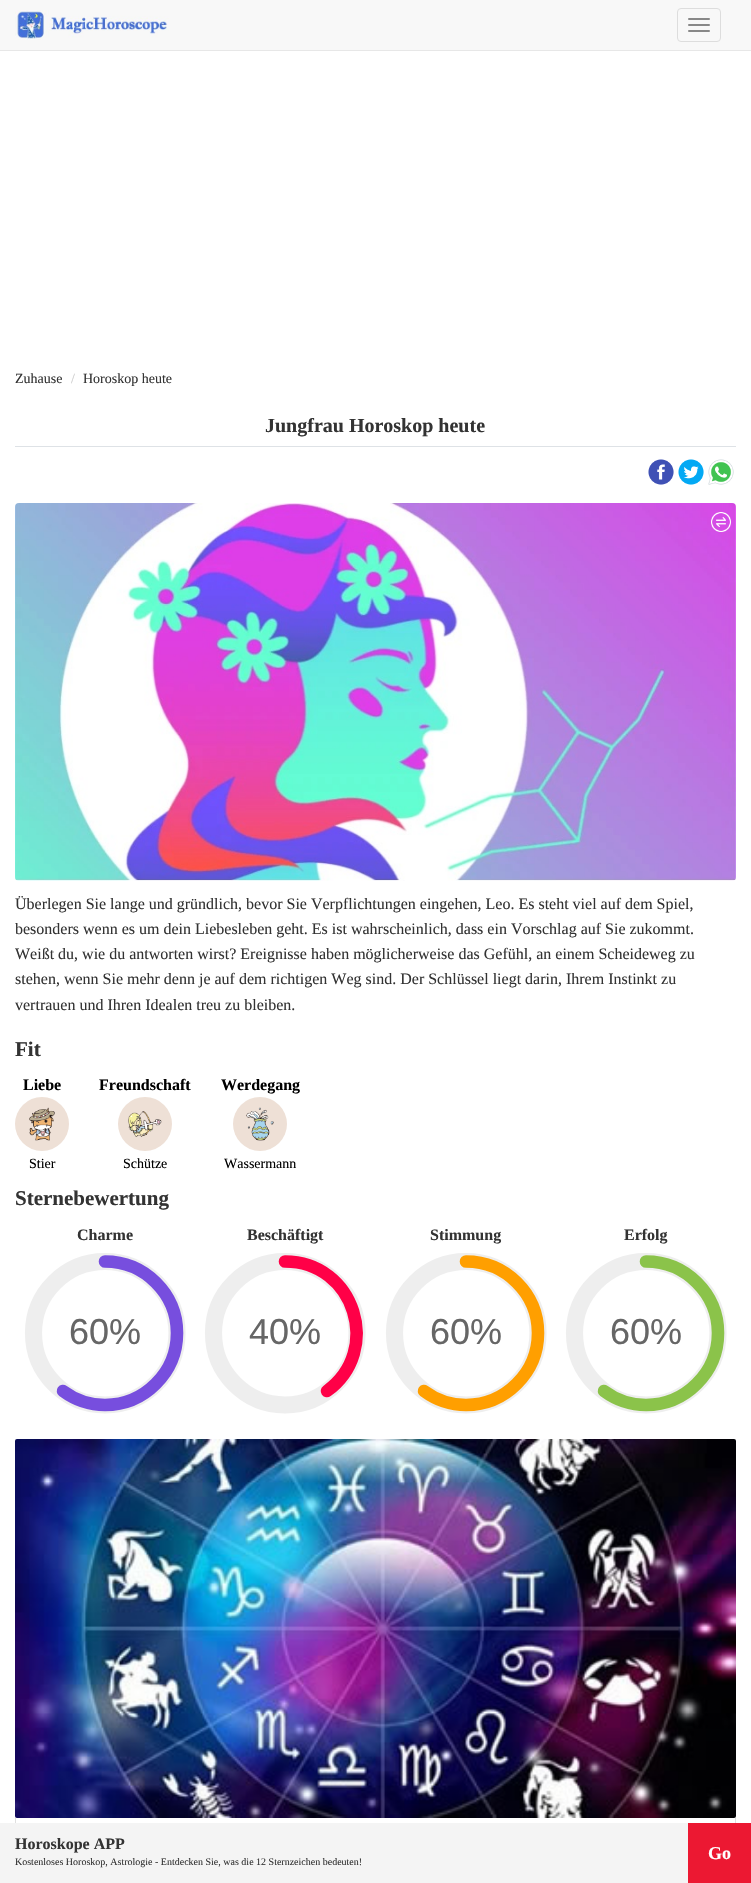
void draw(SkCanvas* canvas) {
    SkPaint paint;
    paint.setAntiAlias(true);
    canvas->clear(0xFFFFFFFF);
    paint.setColor(0xFFF8F8F8);
    canvas->drawRect(SkRect::MakeXYWH(0, 0, 751, 50), paint);
    paint.setColor(0xFFE7E7E7);
    canvas->drawRect(SkRect::MakeXYWH(0, 50, 751, 1), paint);
    canvas->drawImageRect(SkImages::DeferredFromEncodedData(SkData::MakeFromFileName("img1.png")), SkRect::MakeXYWH(15, 10, 154, 30), SkSamplingOptions());
    paint.setStyle(SkPaint::kStroke_Style);
    paint.setStrokeWidth(1);
    paint.setColor(0xFFDDDDDD);
    canvas->drawRoundRect(SkRect::MakeXYWH(677.5f, 8.5f, 43, 33), 3.5f, 3.5f, paint);
    paint.setStyle(SkPaint::kFill_Style);
    paint.setColor(0xFF888888);
    canvas->drawRoundRect(SkRect::MakeXYWH(688, 18, 22, 2), 1, 1, paint);
    canvas->drawRoundRect(SkRect::MakeXYWH(688, 24, 22, 2), 1, 1, paint);
    canvas->drawRoundRect(SkRect::MakeXYWH(688, 30, 22, 2), 1, 1, paint);
    SkFont font1(fontMgr->matchFamilyStyle("Liberation Serif", SkFontStyle::Normal()), 14);
    font1.setSubpixel(true);
    paint.setColor(0xFF333333);
    canvas->drawString("Zuhause", 15, 383, font1, paint);
    paint.setColor(0xFFCCCCCC);
    canvas->drawString("/", 71, 383, font1, paint);
    paint.setColor(0xFF333333);
    canvas->drawString("Horoskop heute", 83, 383, font1, paint);
    paint.setColor(0xFFDEE2E6);
    canvas->drawRect(SkRect::MakeXYWH(15, 446, 721, 1), paint);
    SkFont font2(fontMgr->matchFamilyStyle("Liberation Serif", SkFontStyle::Bold()), 20);
    font2.setSubpixel(true);
    paint.setColor(0xFF333333);
    canvas->drawString("Jungfrau Horoskop heute", 265, 432, font2, paint);
    canvas->drawImageRect(SkImages::DeferredFromEncodedData(SkData::MakeFromFileName("img2.png")), SkRect::MakeXYWH(648, 459, 26, 26), SkSamplingOptions());
    canvas->drawImageRect(SkImages::DeferredFromEncodedData(SkData::MakeFromFileName("img3.png")), SkRect::MakeXYWH(678, 459, 26, 26), SkSamplingOptions());
    canvas->drawImageRect(SkImages::DeferredFromEncodedData(SkData::MakeFromFileName("img4.png")), SkRect::MakeXYWH(708, 459, 26, 26), SkSamplingOptions());
    canvas->drawImageRect(SkImages::DeferredFromEncodedData(SkData::MakeFromFileName("img5.png")), SkRect::MakeXYWH(15, 503, 721, 378), SkSamplingOptions());
    canvas->drawImageRect(SkImages::DeferredFromEncodedData(SkData::MakeFromFileName("img6.png")), SkRect::MakeXYWH(711, 512, 20, 20), SkSamplingOptions());
    SkFont font3(fontMgr->matchFamilyStyle("Liberation Serif", SkFontStyle::Normal()), 16);
    font3.setSubpixel(true);
    canvas->drawString("Überlegen Sie lange und gründlich, bevor Sie Verpflichtungen eingehen, Leo. Es steht viel auf dem Spiel,", 15, 909, font3, paint);
    canvas->drawString("besonders wenn es um dein Liebesleben geht. Es ist wahrscheinlich, dass ein Vorschlag auf Sie zukommt.", 15, 934, font3, paint);
    canvas->drawString("Weißt du, wie du antworten wirst? Ereignisse haben möglicherweise das Gefühl, an einem Scheideweg zu", 15, 959, font3, paint);
    canvas->drawString("stehen, wenn Sie mehr denn je auf dem richtigen Weg sind. Der Schlüssel liegt darin, Ihrem Instinkt zu", 15, 984, font3, paint);
    canvas->drawString("vertrauen und Ihren Idealen treu zu bleiben.", 15, 1010, font3, paint);
    SkFont font4(fontMgr->matchFamilyStyle("Liberation Serif", SkFontStyle::Bold()), 21);
    font4.setSubpixel(true);
    canvas->drawString("Fit", 15, 1056, font4, paint);
    SkFont font5(fontMgr->matchFamilyStyle("Liberation Serif", SkFontStyle::Bold()), 16);
    font5.setSubpixel(true);
    paint.setColor(0xFF000000);
    canvas->drawString("Liebe", 23, 1090, font5, paint);
    paint.setColor(0xFFEEE0D6);
    canvas->drawCircle(42, 1124, 27, paint);
    canvas->drawImageRect(SkImages::DeferredFromEncodedData(SkData::MakeFromFileName("img7.png")), SkRect::MakeXYWH(29, 1107, 26, 34), SkSamplingOptions());
    paint.setColor(0xFF000000);
    canvas->drawString("Stier", 29, 1168, font1, paint);
    canvas->drawString("Freundschaft", 99, 1090, font5, paint);
    paint.setColor(0xFFEEE0D6);
    canvas->drawCircle(145, 1124, 27, paint);
    canvas->drawImageRect(SkImages::DeferredFromEncodedData(SkData::MakeFromFileName("img8.png")), SkRect::MakeXYWH(128, 1111, 34, 26), SkSamplingOptions());
    paint.setColor(0xFF000000);
    canvas->drawString("Schütze", 123, 1168, font1, paint);
    canvas->drawString("Werdegang", 221, 1090, font5, paint);
    paint.setColor(0xFFEEE0D6);
    canvas->drawCircle(260, 1124, 27, paint);
    canvas->drawImageRect(SkImages::DeferredFromEncodedData(SkData::MakeFromFileName("img9.png")), SkRect::MakeXYWH(246, 1107, 28, 34), SkSamplingOptions());
    paint.setColor(0xFF000000);
    canvas->drawString("Wassermann", 224, 1168, font1, paint);
    paint.setColor(0xFF333333);
    canvas->drawString("Sternebewertung", 15, 1205, font4, paint);
    canvas->drawString("Charme", 77, 1240, font5, paint);
    paint.setStyle(SkPaint::kStroke_Style);
    paint.setStrokeWidth(17.1f);
    paint.setColor(0xFFEEEEEE);
    canvas->drawPath(SkPathBuilder().moveTo(105, 1261.5f).cubicTo(144.5f, 1261.5f, 177, 1293.5f, 177, 1333).cubicTo(177, 1372.5f, 144.5f, 1405, 105, 1405).cubicTo(65.5f, 1405, 33.5f, 1372.5f, 33.5f, 1333).cubicTo(33.5f, 1293.5f, 65.5f, 1261.5f, 105, 1261.5f).detach(), paint);
    paint.setStrokeWidth(12.6f);
    paint.setStrokeCap(SkPaint::kRound_Cap);
    paint.setColor(0xFF774EDE);
    canvas->drawPath(SkPathBuilder().moveTo(105, 1261.5f).cubicTo(144.5f, 1261.5f, 177, 1293.5f, 177, 1333).cubicTo(177, 1372.5f, 144.5f, 1405, 105, 1405).cubicTo(89.5f, 1405, 74.5f, 1399.5f, 63, 1391).detach(), paint);
    SkFont font6(fontMgr->matchFamilyStyle("Liberation Sans", SkFontStyle::Normal()), 36);
    font6.setSubpixel(true);
    paint.setStyle(SkPaint::kFill_Style);
    paint.setColor(0xFF666666);
    canvas->drawString("60%", 69, 1344, font6, paint);
    paint.setColor(0xFF333333);
    canvas->drawString("Beschäftigt", 247, 1240, font5, paint);
    paint.setStyle(SkPaint::kStroke_Style);
    paint.setStrokeWidth(17.1f);
    paint.setStrokeCap(SkPaint::kButt_Cap);
    paint.setColor(0xFFEEEEEE);
    canvas->drawPath(SkPathBuilder().moveTo(285, 1261.5f).cubicTo(324.5f, 1261.5f, 357, 1293.5f, 357, 1333).cubicTo(357, 1372.5f, 324.5f, 1405, 285, 1405).cubicTo(245.5f, 1405, 213.5f, 1372.5f, 213.5f, 1333).cubicTo(213.5f, 1293.5f, 245.5f, 1261.5f, 285, 1261.5f).detach(), paint);
    paint.setStrokeWidth(12.6f);
    paint.setStrokeCap(SkPaint::kRound_Cap);
    paint.setColor(0xFFFF0047);
    canvas->drawPath(SkPathBuilder().moveTo(285, 1261.5f).cubicTo(355, 1261.5f, 382.5f, 1351, 327, 1391).detach(), paint);
    paint.setStyle(SkPaint::kFill_Style);
    paint.setColor(0xFF666666);
    canvas->drawString("40%", 249, 1344, font6, paint);
    paint.setColor(0xFF333333);
    canvas->drawString("Stimmung", 430, 1240, font5, paint);
    paint.setStyle(SkPaint::kStroke_Style);
    paint.setStrokeWidth(17.1f);
    paint.setStrokeCap(SkPaint::kButt_Cap);
    paint.setColor(0xFFEEEEEE);
    canvas->drawPath(SkPathBuilder().moveTo(466, 1261.5f).cubicTo(505.5f, 1261.5f, 538, 1293.5f, 538, 1333).cubicTo(538, 1372.5f, 505.5f, 1405, 466, 1405).cubicTo(426.5f, 1405, 394.5f, 1372.5f, 394.5f, 1333).cubicTo(394.5f, 1293.5f, 426.5f, 1261.5f, 466, 1261.5f).detach(), paint);
    paint.setStrokeWidth(12.6f);
    paint.setStrokeCap(SkPaint::kRound_Cap);
    paint.setColor(0xFFFF9F00);
    canvas->drawPath(SkPathBuilder().moveTo(466, 1261.5f).cubicTo(505.5f, 1261.5f, 538, 1293.5f, 538, 1333).cubicTo(538, 1372.5f, 505.5f, 1405, 466, 1405).cubicTo(450.5f, 1405, 435.5f, 1399.5f, 424, 1391).detach(), paint);
    paint.setStyle(SkPaint::kFill_Style);
    paint.setColor(0xFF666666);
    canvas->drawString("60%", 430, 1344, font6, paint);
    paint.setColor(0xFF333333);
    canvas->drawString("Erfolg", 624, 1240, font5, paint);
    paint.setStyle(SkPaint::kStroke_Style);
    paint.setStrokeWidth(17.1f);
    paint.setStrokeCap(SkPaint::kButt_Cap);
    paint.setColor(0xFFEEEEEE);
    canvas->drawPath(SkPathBuilder().moveTo(646, 1261.5f).cubicTo(685.5f, 1261.5f, 718, 1293.5f, 718, 1333).cubicTo(718, 1372.5f, 685.5f, 1405, 646, 1405).cubicTo(606.5f, 1405, 574.5f, 1372.5f, 574.5f, 1333).cubicTo(574.5f, 1293.5f, 606.5f, 1261.5f, 646, 1261.5f).detach(), paint);
    paint.setStrokeWidth(12.6f);
    paint.setStrokeCap(SkPaint::kRound_Cap);
    paint.setColor(0xFF8BC34A);
    canvas->drawPath(SkPathBuilder().moveTo(646, 1261.5f).cubicTo(685.5f, 1261.5f, 718, 1293.5f, 718, 1333).cubicTo(718, 1372.5f, 685.5f, 1405, 646, 1405).cubicTo(630.5f, 1405, 615.5f, 1399.5f, 604, 1391).detach(), paint);
    paint.setStyle(SkPaint::kFill_Style);
    paint.setColor(0xFF666666);
    canvas->drawString("60%", 610, 1344, font6, paint);
    canvas->drawImageRect(SkImages::DeferredFromEncodedData(SkData::MakeFromFileName("img10.png")), SkRect::MakeXYWH(15, 1439, 721, 379), SkSamplingOptions());
    paint.setColor(0xFFDFDFDF);
    canvas->drawRect(SkRect::MakeXYWH(735, 1818, 1, 5), paint);
    canvas->drawRect(SkRect::MakeXYWH(15, 1818, 1, 5), paint);
    paint.setColor(0xFFF4F4F4);
    canvas->drawRect(SkRect::MakeXYWH(0, 1823, 688, 60), paint);
    paint.setColor(0xFF333333);
    canvas->drawString("Horoskope APP", 15, 1849, font5, paint);
    SkFont font7(fontMgr->matchFamilyStyle("Liberation Serif", SkFontStyle::Normal()), 10);
    font7.setSubpixel(true);
    canvas->drawString("Kostenloses Horoskop, Astrologie - Entdecken Sie, was die 12 Sternzeichen bedeuten!", 15, 1865, font7, paint);
    paint.setColor(0xFFEC1832);
    canvas->drawRect(SkRect::MakeXYWH(688, 1823, 63, 60), paint);
    SkFont font8(fontMgr->matchFamilyStyle("Liberation Serif", SkFontStyle::Bold()), 18);
    font8.setSubpixel(true);
    paint.setColor(0xFFFFFFFF);
    canvas->drawString("Go", 708, 1859, font8, paint);
}
